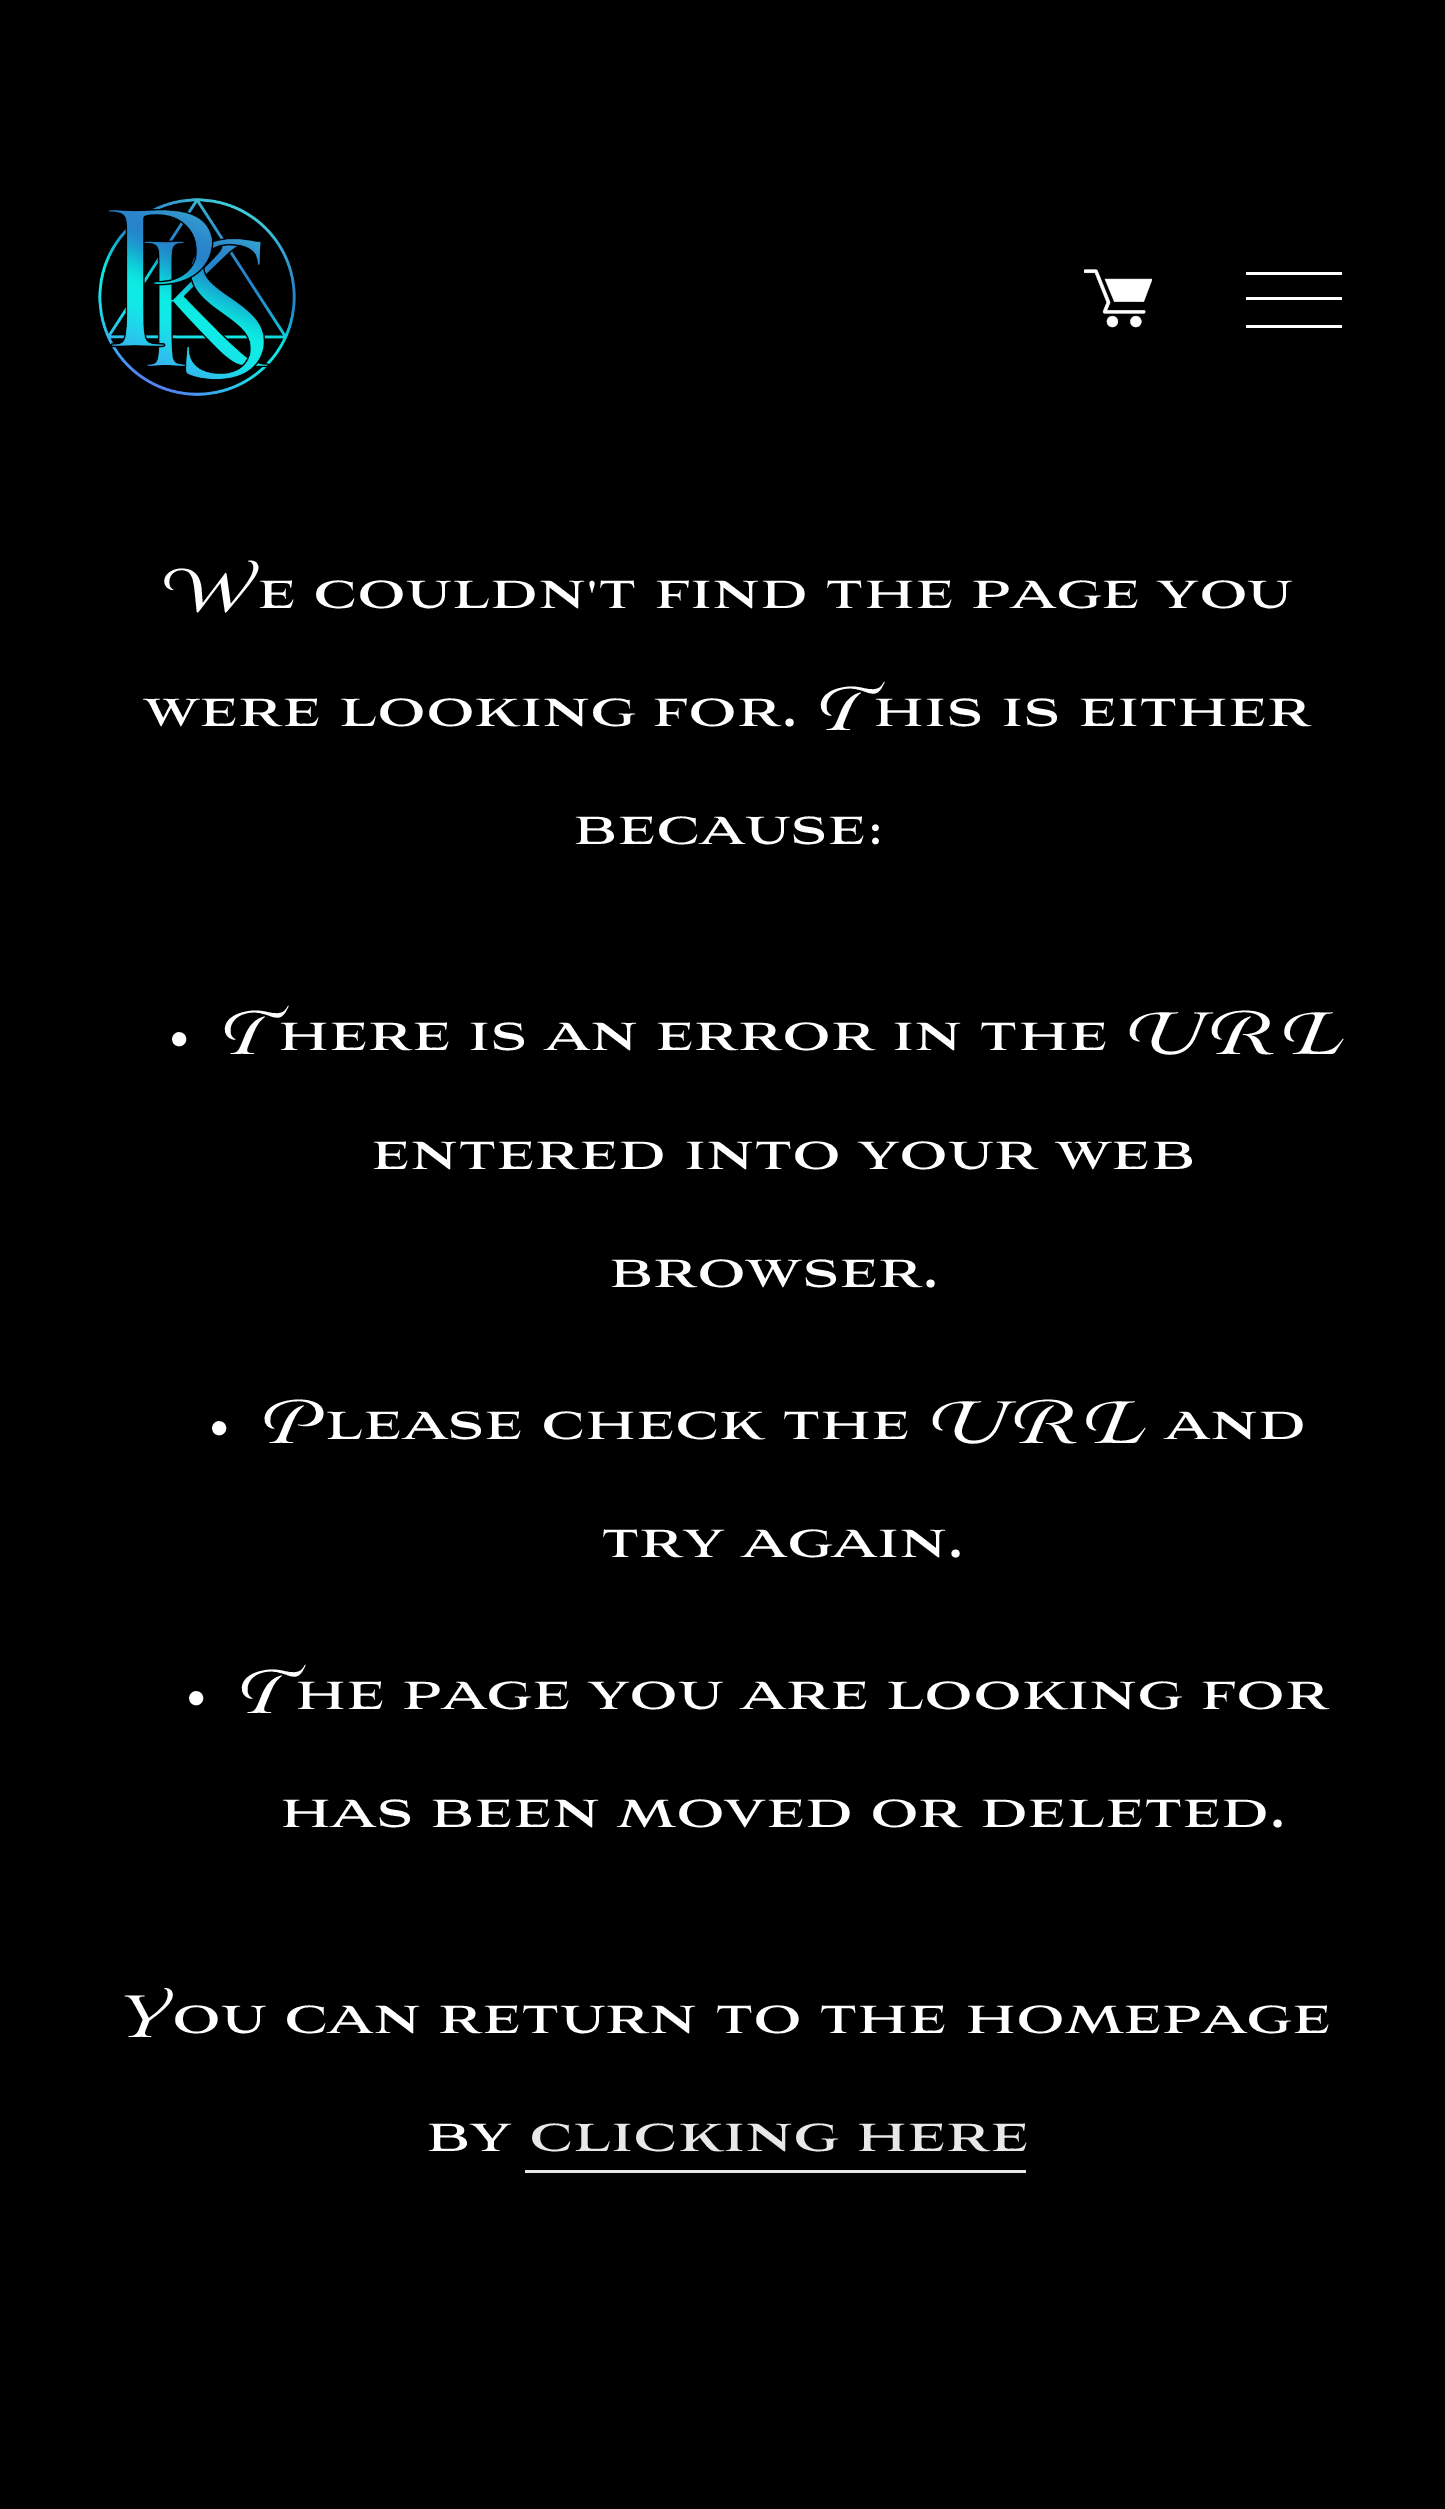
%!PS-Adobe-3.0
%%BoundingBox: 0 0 1445 2509
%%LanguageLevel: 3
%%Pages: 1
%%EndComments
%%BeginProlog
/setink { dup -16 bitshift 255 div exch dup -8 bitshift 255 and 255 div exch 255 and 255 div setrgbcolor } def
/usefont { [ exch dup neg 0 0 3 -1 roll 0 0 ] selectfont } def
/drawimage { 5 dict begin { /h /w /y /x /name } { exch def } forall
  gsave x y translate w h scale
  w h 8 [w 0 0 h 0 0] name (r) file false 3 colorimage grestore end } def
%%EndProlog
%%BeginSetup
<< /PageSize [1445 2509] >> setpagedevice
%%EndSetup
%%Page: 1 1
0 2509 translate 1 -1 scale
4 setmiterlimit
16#000000 setink
0 0 1445 2509 rectfill
(img1.raw) 98 198 198 198 drawimage
(img2.raw) 1084 269 68 59 drawimage
[
    [1246 272 96 3 16#FFFFFF]
    [1246 297 96 3 16#FFFFFF]
    [1246 325 96 3 16#FFFFFF]
] { aload pop setink rectfill } forall
/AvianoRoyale-Medium 67.75 usefont
158 612 moveto -0.7 0 (We couldn't find the page you) ashow
139 730 moveto -0.7 0 (were looking for. This is either) ashow
569 848 moveto -0.7 0 (because:) ashow
163 1054 moveto -0.7 0 (•) ashow
215 1054 moveto -0.7 0 (There is an error in the URL) ashow
367 1173 moveto -0.7 0 (entered into your web) ashow
605 1291 moveto -0.7 0 (browser.) ashow
203 1443 moveto -0.7 0 (•) ashow
255 1443 moveto -0.7 0 (Please check the URL and) ashow
597 1561 moveto -0.7 0 (try again.) ashow
180 1713 moveto -0.7 0 (•) ashow
232 1713 moveto -0.7 0 (The page you are looking for) ashow
276 1831 moveto -0.7 0 (has been moved or deleted.) ashow
120 2037 moveto -0.7 0 (You can return to the homepage) ashow
422 2155 moveto -0.7 0 (by) ashow
16#E8E8E8 setink
525 2155 moveto -0.7 0 (clicking here) ashow
525 2170 501 3 rectfill
showpage
%%EOF
